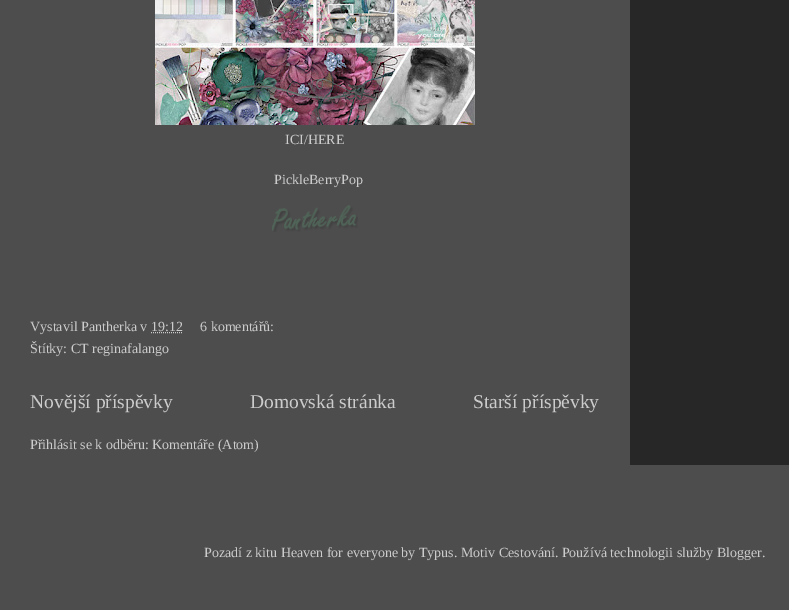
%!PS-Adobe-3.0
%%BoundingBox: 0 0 789 611
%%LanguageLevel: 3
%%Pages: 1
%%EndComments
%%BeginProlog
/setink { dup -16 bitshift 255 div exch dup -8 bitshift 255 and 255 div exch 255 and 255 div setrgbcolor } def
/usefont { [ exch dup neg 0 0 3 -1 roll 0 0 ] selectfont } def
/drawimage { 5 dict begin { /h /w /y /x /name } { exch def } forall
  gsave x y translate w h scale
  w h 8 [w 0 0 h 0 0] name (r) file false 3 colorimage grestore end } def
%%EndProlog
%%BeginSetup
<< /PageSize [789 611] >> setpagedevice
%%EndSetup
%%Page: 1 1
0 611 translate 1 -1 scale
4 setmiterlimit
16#FFFFFF setink
0 0 789 611 rectfill
16#4D4D4D setink
0 0 789 610 rectfill
(img1.raw) 155 0 320 125 drawimage
/LiberationSerif-Regular 14 usefont
16#CCCCCC setink
285 144 moveto (ICI/HERE) show
274 184 moveto (PickleBerryPop) show
(img2.raw) 272 205 86 27 drawimage
30 331 moveto (Vystavil Pantherka v 19:12) show
200 331 moveto (6 komentářů:) show
[1 1] 0 setdash
151 332.5 moveto 183 332.5 lineto stroke
30 353 moveto (Štítky: CT reginafalango) show
/LiberationSerif-Regular 19.5 usefont
[
    [(Novější příspěvky) 30 408]
    [(Domovská stránka) 250 408]
    [(Starší příspěvky) 473 408]
] { aload pop moveto show } forall
/LiberationSerif-Regular 14 usefont
30 449 moveto (Přihlásit se k odběru: Komentáře \(Atom\)) show
16#272727 setink
630 0 159 465 rectfill
16#CCCCCC setink
204 557 moveto (Pozadí z kitu Heaven for everyone by Typus. Motiv Cestování. Používá technologii služby Blogger.) show
showpage
%%EOF
